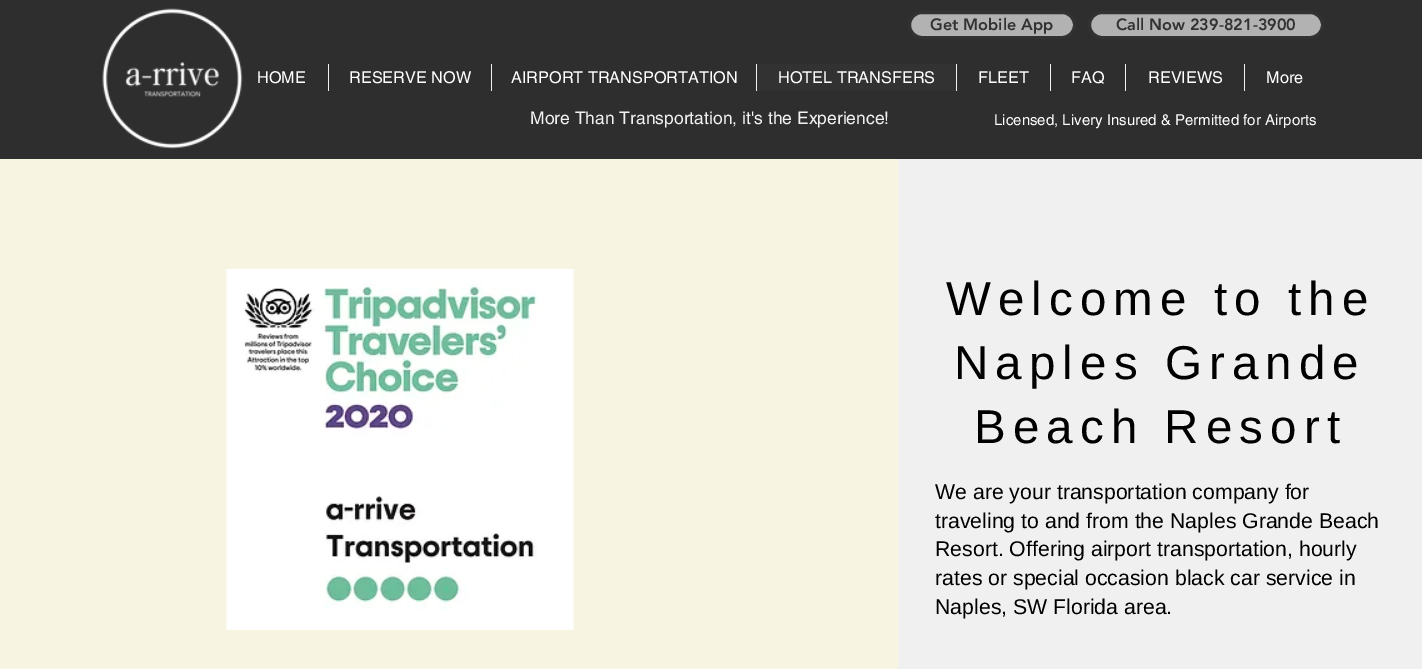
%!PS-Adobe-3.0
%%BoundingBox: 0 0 1422 669
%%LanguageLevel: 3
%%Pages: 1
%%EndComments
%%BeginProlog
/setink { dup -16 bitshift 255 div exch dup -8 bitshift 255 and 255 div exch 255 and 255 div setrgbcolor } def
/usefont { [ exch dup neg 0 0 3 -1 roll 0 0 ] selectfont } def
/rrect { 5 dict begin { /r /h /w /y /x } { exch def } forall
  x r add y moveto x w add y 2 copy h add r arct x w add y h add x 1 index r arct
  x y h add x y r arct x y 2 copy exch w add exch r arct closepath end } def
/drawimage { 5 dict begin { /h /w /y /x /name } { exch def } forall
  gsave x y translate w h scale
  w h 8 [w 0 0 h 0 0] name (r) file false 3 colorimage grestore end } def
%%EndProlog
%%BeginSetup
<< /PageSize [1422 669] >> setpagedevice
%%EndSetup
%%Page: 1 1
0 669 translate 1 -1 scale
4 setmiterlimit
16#2F2E2E setink
0 0 1422 669 rectfill
(img1.raw) 102 8 141 141 drawimage
16#B2B2B2 setink
909.5 12.5 165 25 12.5 rrect gsave fill grestore
16#323232 setink
3 setlinewidth
stroke
/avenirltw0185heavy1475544-Black 16.25 usefont
930 30 moveto (Get Mobile App) show
16#B2B2B2 setink
1089.5 12.5 233 25 12.5 rrect gsave fill grestore
16#323232 setink
stroke
1116 30 moveto (Call Now 239-821-3900) show
/helvetica-Regular 16.25 usefont
16#FFFFFF setink
257 83 moveto (HOME) show
16#F1F1F1 setink
328 64 1 27 rectfill
16#FFFFFF setink
349 83 moveto (RESERVE NOW) show
16#F1F1F1 setink
491 64 1 27 rectfill
16#FFFFFF setink
511 83 moveto (AIRPORT TRANSPORTATION) show
16#323232 setink
757 64 199 27 rectfill
16#F1F1F1 setink
756 64 1 27 rectfill
16#FFFFFF setink
778 83 moveto (HOTEL TRANSFERS) show
16#F1F1F1 setink
956 64 1 27 rectfill
16#FFFFFF setink
978 83 moveto (FLEET) show
16#F1F1F1 setink
1050 64 1 27 rectfill
16#FFFFFF setink
1071 83 moveto (FAQ) show
16#F1F1F1 setink
1125 64 1 27 rectfill
16#FFFFFF setink
1148 83 moveto (REVIEWS) show
16#F1F1F1 setink
1244 64 1 27 rectfill
16#FFFFFF setink
1266 83 moveto (More) show
/helvetica-Regular 17.5 usefont
16#F1F1F1 setink
530 124 moveto (More Than Transportation, it's the Experience!) show
/helvetica-Regular 15 usefont
16#FFFFFF setink
994 125 moveto (Licensed, Livery Insured & Permitted for Airports) show
16#F7F5E1 setink
0 159 898 510 rectfill
(img2.raw) 226 269 348 361 drawimage
16#F0F0F0 setink
898 159 524 510 rectfill
/LiberationSans-Regular 47.5 usefont
16#000000 setink
946 315 moveto 7.1 0 (Welcome to the) ashow
954 379 moveto 7.1 0 (Naples Grande) ashow
974 443 moveto 7.1 0 (Beach Resort) ashow
/LiberationSans-Regular 21.25 usefont
[
    [(We are your transportation company for) 935 499]
    [(traveling to and from the Naples Grande Beach) 935 528]
    [(Resort. Offering airport transportation, hourly) 935 556]
    [(rates or special occasion black car service in) 935 585]
    [(Naples, SW Florida area.) 935 614]
] { aload pop moveto show } forall
showpage
%%EOF
